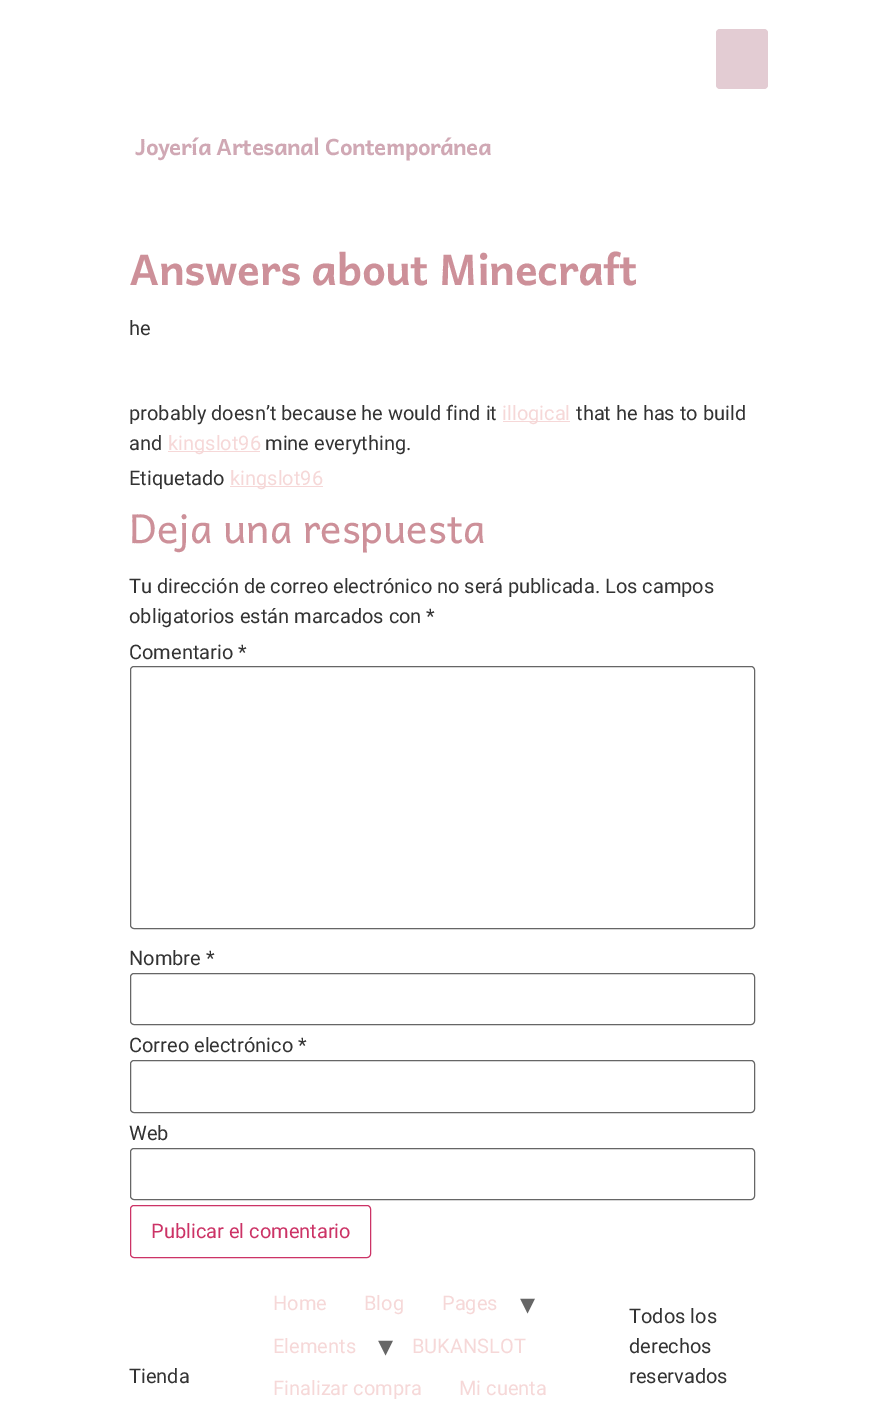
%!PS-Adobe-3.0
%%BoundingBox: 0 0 883 1421
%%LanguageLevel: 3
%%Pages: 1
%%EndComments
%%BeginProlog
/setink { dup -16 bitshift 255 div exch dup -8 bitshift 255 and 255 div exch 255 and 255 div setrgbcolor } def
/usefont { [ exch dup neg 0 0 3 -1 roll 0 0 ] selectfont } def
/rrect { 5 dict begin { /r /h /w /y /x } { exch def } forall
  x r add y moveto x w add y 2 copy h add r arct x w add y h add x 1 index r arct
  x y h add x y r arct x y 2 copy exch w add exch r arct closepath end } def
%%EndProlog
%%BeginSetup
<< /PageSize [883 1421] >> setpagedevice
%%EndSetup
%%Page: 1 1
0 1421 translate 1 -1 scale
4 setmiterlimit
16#FFFFFF setink
0 0 883 1421 rectfill
16#E3CCD3 setink
716 29 52 60 4 rrect fill
/Andika-Bold 22.5 usefont
16#D0A8B4 setink
135 155 moveto -0.6 0 (Joyería Artesanal Contemporánea) ashow
/Andika-Bold 42.5 usefont
16#CD9099 setink
129 285 moveto -0.6 0 (Answers about Minecraft) ashow
/Roboto-Regular 20 usefont
16#333333 setink
129 335 moveto (he) show
129 420 moveto (probably doesn’t because he would find it) show
16#F6D8D8 setink
503 421 67 1 rectfill
502 420 moveto (illogical) show
16#333333 setink
576 420 moveto (that he has to build) show
129 450 moveto (and) show
16#F6D8D8 setink
168 451 92 1 rectfill
168 450 moveto (kingslot96) show
16#333333 setink
265 450 moveto (mine everything.) show
129 485 moveto (Etiquetado) show
16#F6D8D8 setink
230 486 93 1 rectfill
230 485 moveto (kingslot96) show
/Andika-Regular 40 usefont
16#CD9099 setink
129 543 moveto (Deja una respuesta) show
/Roboto-Regular 20 usefont
16#333333 setink
[
    [(Tu dirección de correo electrónico no será publicada. Los campos) 129 593]
    [(obligatorios están marcados con *) 129 623]
    [(Comentario *) 129 659]
] { aload pop moveto show } forall
16#666666 setink
130.5 666.5 624 262 3.5 rrect stroke
16#333333 setink
129 965 moveto (Nombre *) show
16#666666 setink
130.5 973.5 624 51 3.5 rrect stroke
16#333333 setink
129 1052 moveto (Correo electrónico *) show
16#666666 setink
130.5 1060.5 624 52 3.5 rrect stroke
16#333333 setink
129 1140 moveto (Web) show
16#666666 setink
130.5 1148.5 624 51 3.5 rrect stroke
16#CC3366 setink
130.5 1205.5 240 52 3.5 rrect stroke
151 1238 moveto (Publicar el comentario) show
16#333333 setink
129 1383 moveto (Tienda) show
16#F6D8D8 setink
[
    [(Home) 273 1310]
    [(Blog) 364 1310]
    [(Pages) 442 1310]
] { aload pop moveto show } forall
/DejaVuSans-Regular 30 usefont
16#666666 setink
520 1314 moveto (▾) show
/Roboto-Regular 20 usefont
16#F6D8D8 setink
273 1353 moveto (Elements) show
/DejaVuSans-Regular 30 usefont
16#666666 setink
378 1356 moveto (▾) show
/Roboto-Regular 20 usefont
16#F6D8D8 setink
[
    [(BUKANSLOT) 412 1353]
    [(Finalizar compra) 273 1395]
    [(Mi cuenta) 459 1395]
] { aload pop moveto show } forall
16#333333 setink
[
    [(Todos los) 629 1323]
    [(derechos) 629 1353]
    [(reservados) 629 1383]
] { aload pop moveto show } forall
showpage
%%EOF
